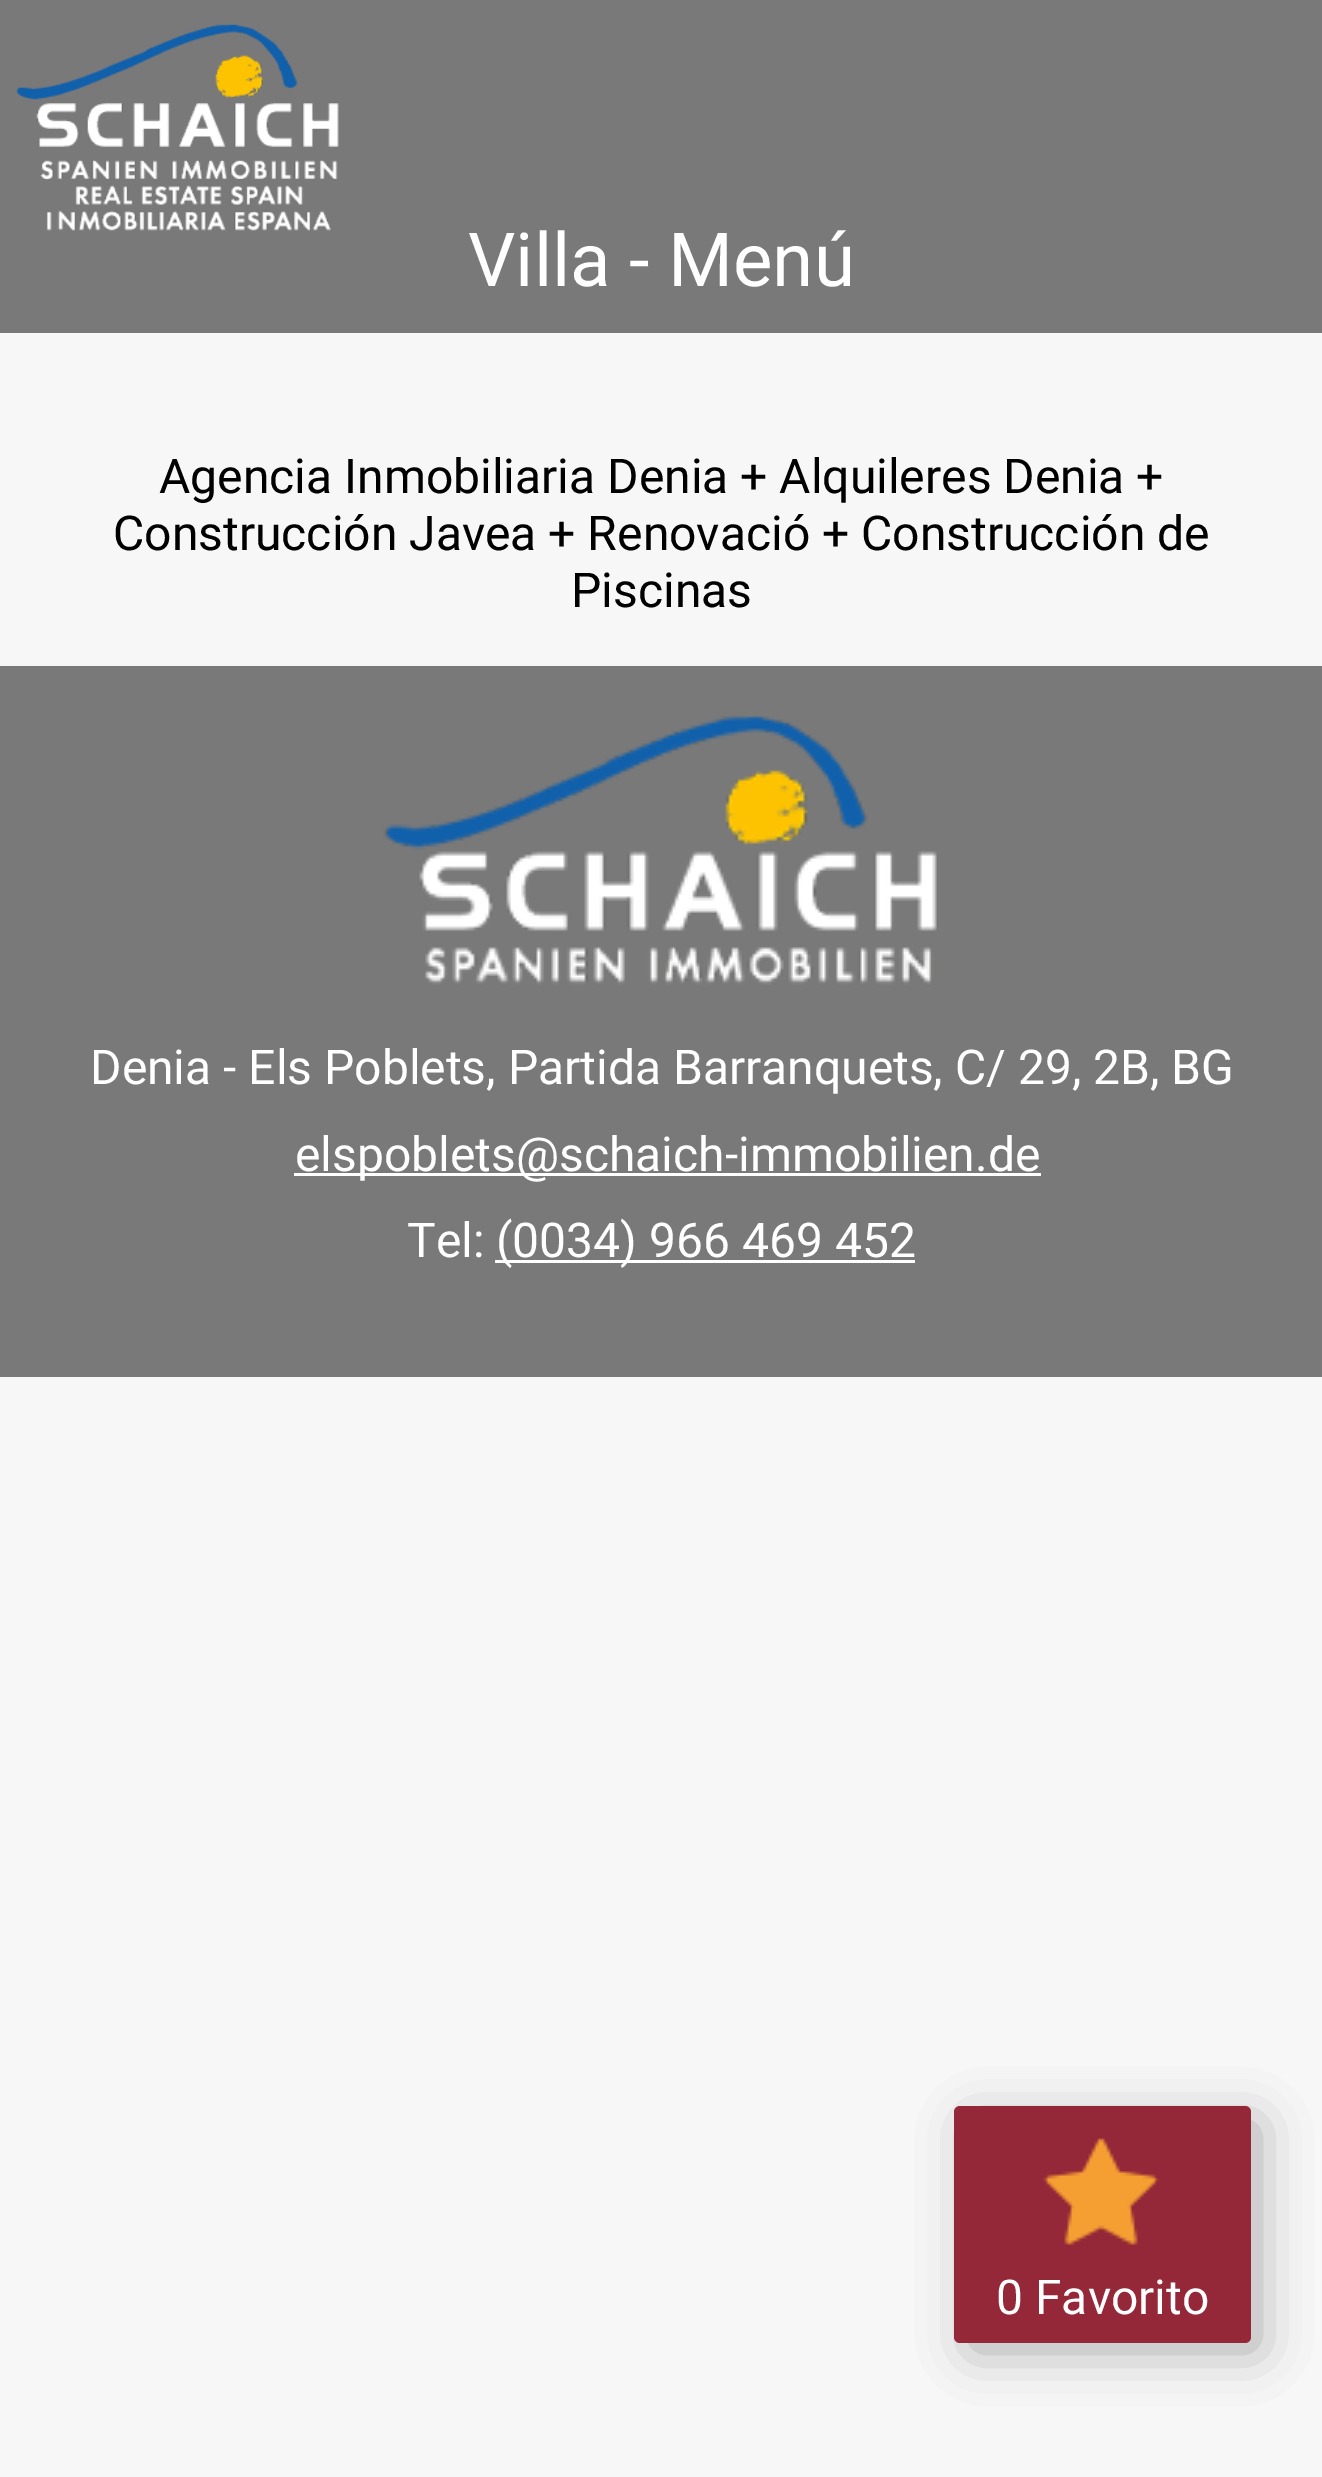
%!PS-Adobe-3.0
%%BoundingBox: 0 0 1322 2477
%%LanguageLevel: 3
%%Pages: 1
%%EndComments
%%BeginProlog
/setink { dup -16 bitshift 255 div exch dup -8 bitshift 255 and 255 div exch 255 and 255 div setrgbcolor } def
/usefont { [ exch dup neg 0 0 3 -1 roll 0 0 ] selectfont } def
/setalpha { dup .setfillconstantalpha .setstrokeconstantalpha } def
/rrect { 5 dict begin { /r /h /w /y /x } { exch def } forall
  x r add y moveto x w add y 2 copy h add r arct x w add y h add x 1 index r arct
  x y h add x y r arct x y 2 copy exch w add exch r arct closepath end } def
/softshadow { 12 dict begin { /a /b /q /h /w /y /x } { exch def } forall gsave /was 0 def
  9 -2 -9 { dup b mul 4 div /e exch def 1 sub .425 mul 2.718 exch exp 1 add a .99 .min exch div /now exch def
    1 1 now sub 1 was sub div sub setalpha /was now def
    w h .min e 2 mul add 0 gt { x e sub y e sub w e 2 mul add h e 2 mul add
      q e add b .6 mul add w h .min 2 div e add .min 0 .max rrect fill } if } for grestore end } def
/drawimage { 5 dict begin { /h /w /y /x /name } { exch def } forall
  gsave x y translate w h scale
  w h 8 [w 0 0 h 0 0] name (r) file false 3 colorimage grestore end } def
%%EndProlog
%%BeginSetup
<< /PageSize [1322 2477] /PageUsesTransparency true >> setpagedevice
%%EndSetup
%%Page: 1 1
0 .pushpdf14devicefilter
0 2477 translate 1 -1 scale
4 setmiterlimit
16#F7F7F7 setink
0 0 1322 2477 rectfill
16#797979 setink
0 0 1322 333 rectfill
(img1.raw) 16 24 323 207 drawimage
/Roboto-Regular 74.5 usefont
16#FFFFFF setink
468 286 moveto (Villa - Menú) show
/Roboto-Regular 48 usefont
16#000000 setink
[
    [(Agencia Inmobiliaria Denia + Alquileres Denia +) 159 493]
    [(Construcción Javea + Renovació + Construcción de) 113 550]
    [(Piscinas) 571 607]
] { aload pop moveto show } forall
16#797979 setink
0 666 1322 711 rectfill
(img2.raw) 383 716 555 269 drawimage
16#FFFFFF setink
90 1084 moveto (Denia - Els Poblets, Partida Barranquets, C/ 29, 2B, BG) show
294 1173 747 3 rectfill
295 1171 moveto (elspoblets@schaich-immobilien.de) show
407 1257 moveto (Tel:) show
495 1260 420 3 rectfill
496 1257 moveto (\(0034\) 966 469 452) show
16#191919 setink
972 2124 285 225 0 25.5 0.35 softshadow
16#942838 setink
954 2106 297 237 6 rrect fill
(img3.raw) 1043 2138 116 107 drawimage
16#FFFFFF setink
996 2314 moveto (0 Favorito) show
.poppdf14devicefilter showpage
%%EOF
